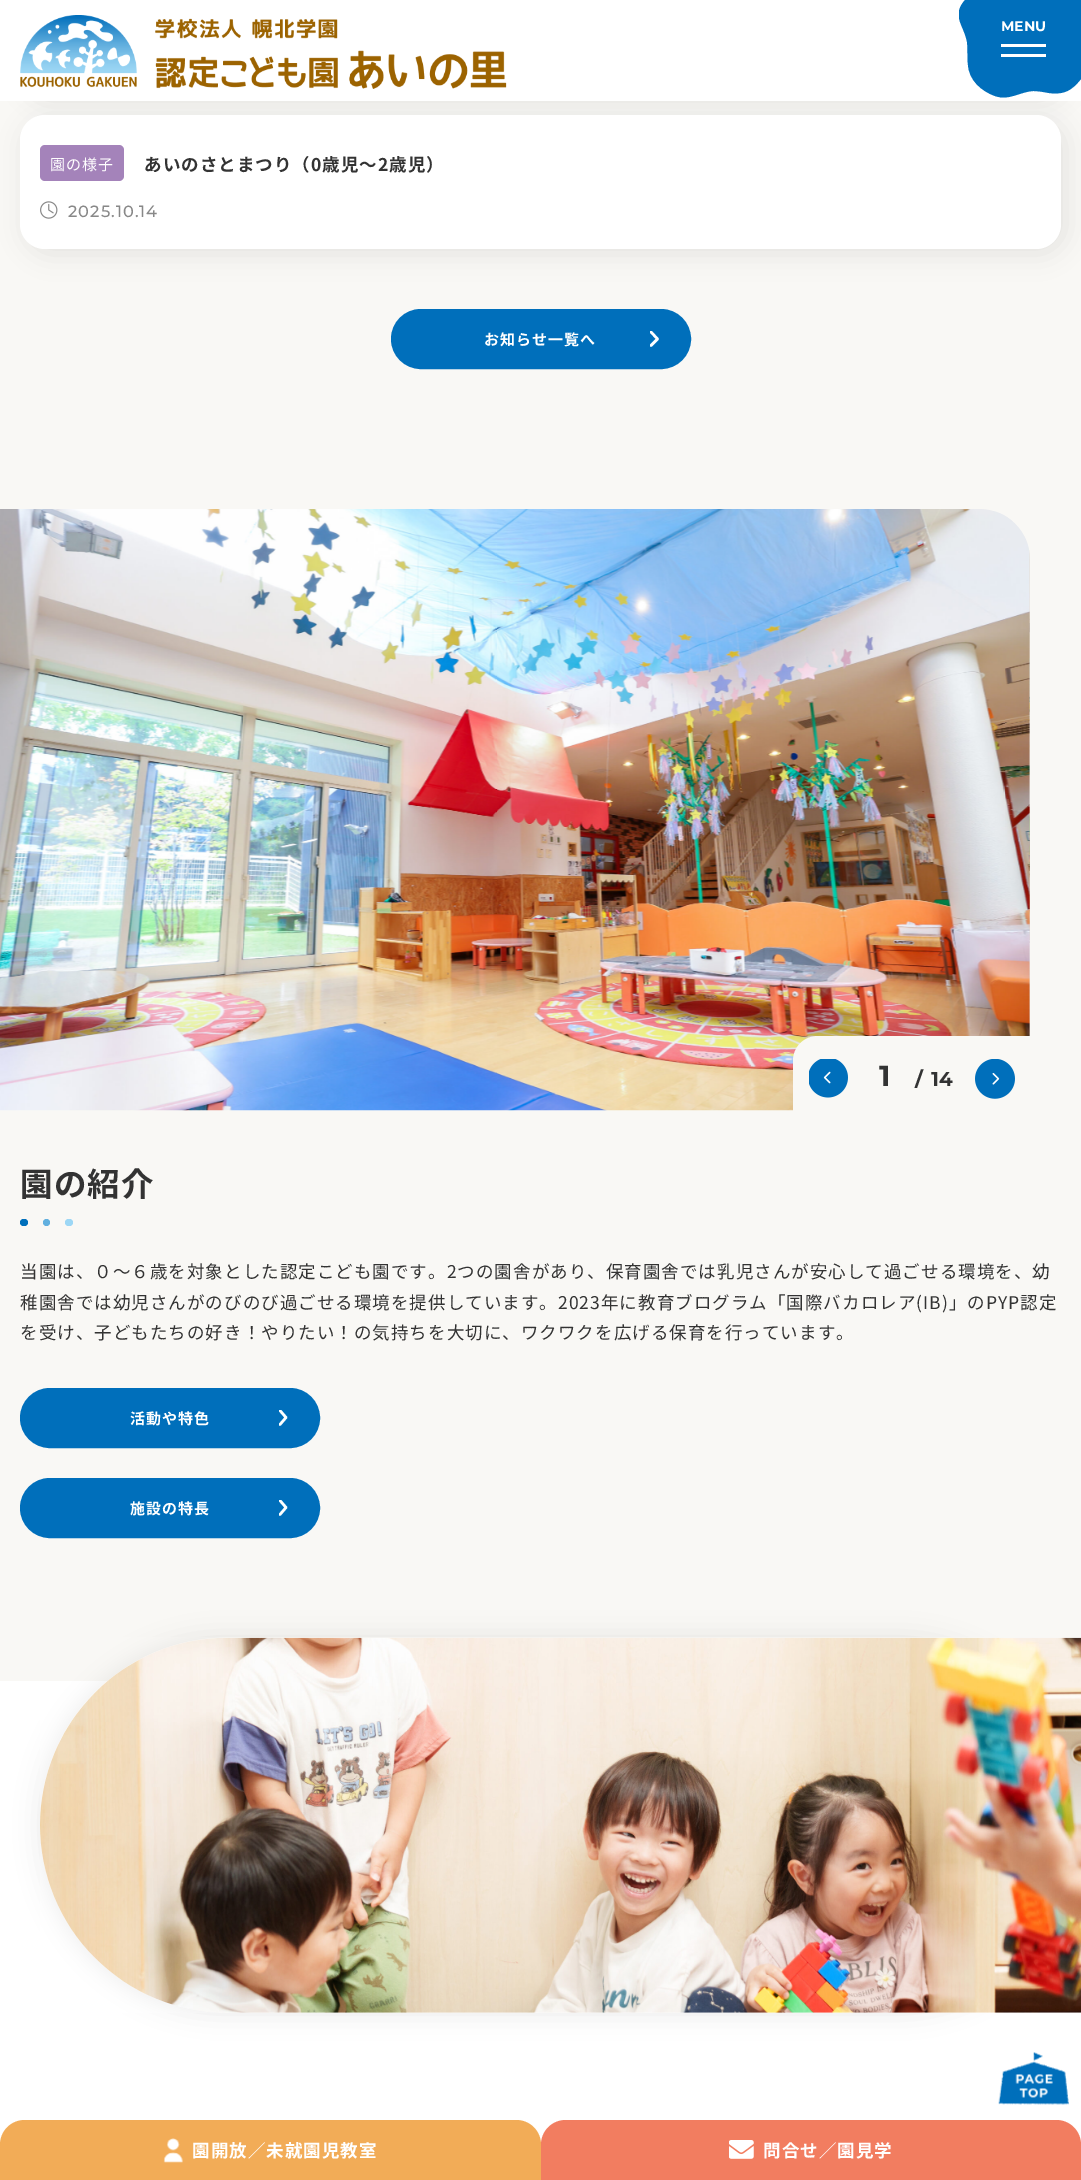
%!PS-Adobe-3.0
%%BoundingBox: 0 0 1081 2180
%%LanguageLevel: 3
%%Pages: 1
%%EndComments
%%BeginProlog
/setink { dup -16 bitshift 255 div exch dup -8 bitshift 255 and 255 div exch 255 and 255 div setrgbcolor } def
/usefont { [ exch dup neg 0 0 3 -1 roll 0 0 ] selectfont } def
/setalpha { dup .setfillconstantalpha .setstrokeconstantalpha } def
/disc { newpath 0 360 arc closepath } def
/rrect { 5 dict begin { /r /h /w /y /x } { exch def } forall
  x r add y moveto x w add y 2 copy h add r arct x w add y h add x 1 index r arct
  x y h add x y r arct x y 2 copy exch w add exch r arct closepath end } def
/softshadow { 12 dict begin { /a /b /q /h /w /y /x } { exch def } forall gsave /was 0 def
  9 -2 -9 { dup b mul 4 div /e exch def 1 sub .425 mul 2.718 exch exp 1 add a .99 .min exch div /now exch def
    1 1 now sub 1 was sub div sub setalpha /was now def
    w h .min e 2 mul add 0 gt { x e sub y e sub w e 2 mul add h e 2 mul add
      q e add b .6 mul add w h .min 2 div e add .min 0 .max rrect fill } if } for grestore end } def
/drawimage { 5 dict begin { /h /w /y /x /name } { exch def } forall
  gsave x y translate w h scale
  w h 8 [w 0 0 h 0 0] name (r) file false 3 colorimage grestore end } def
%%EndProlog
%%BeginSetup
<< /PageSize [1081 2180] /PageUsesTransparency true >> setpagedevice
%%EndSetup
%%Page: 1 1
0 .pushpdf14devicefilter
0 2180 translate 1 -1 scale
4 setmiterlimit
16#F9F8F5 setink
0 0 1081 2180 rectfill
16#333333 setink
25 -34 1041 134 25 12.5 0.1 softshadow
25 120 1041 134 25 12.5 0.1 softshadow
16#FFFFFF setink
0 0 1081 101 rectfill
(img1.raw) 20 15 487 74 drawimage
gsave
959 0 122 98 rectclip
16#006FBB setink
1081 0 moveto 1081 79 lineto 1072 90 1065 95 1049 93 curveto 1044 92 1038 91 1033 91 curveto 1019 92 1009 101 995 96 curveto 981 91 969 80 968 65 curveto 967 57 968 50 967 42 curveto 964 25 951 16 965 0 curveto closepath eofill
grestore
/Montserrat-Bold 14 usefont
1001 31 moveto (MENU) show
1001 44 45 3 rectfill
1001 54 45 3 rectfill
20 115 1041 134 25 rrect fill
16#A483BA setink
40 145 84 36 5 rrect fill
/NotoSansJP-Regular 15 usefont
16#FFFFFF setink
50 170 moveto 1.05 0 (園の様子) ashow
/NotoSansJP-Bold 17.5 usefont
16#333333 setink
144 171 moveto 1.05 0 (あいのさとまつり（0歳児～2歳児）) ashow
(img2.raw) 40 201 18 18 drawimage
/Montserrat-Medium 16.25 usefont
16#888888 setink
68 217 moveto 1.05 0 (2025.10.14) ashow
16#006FBB setink
392.5 310.5 297 57 28.5 rrect gsave fill grestore
3 setlinewidth
stroke
/NotoSansJP-Bold 15 usefont
16#FFFFFF setink
484 345 moveto 1.05 0 (お知らせ一覧へ) ashow
gsave
650 331 9 17 rectclip
2.5 setlinewidth
1 setlinecap
1 setlinejoin
651 332 moveto 657.5 339 lineto 651 345.5 lineto stroke
grestore
(img3.raw) 0 509 1030 602 drawimage
(img4.raw) 1029 550 1 486 drawimage
16#F9F8F5 setink
818 1036 moveto 1031 1036 lineto 1031 1111 lineto 793 1111 lineto 793 1061 lineto 793 1047 804 1036 818 1036 curveto closepath fill
(img5.raw) 809 1059 39 39 drawimage
/Montserrat-Bold 29 usefont
16#333333 setink
879 1086 moveto 1.05 0 (1) ashow
/Montserrat-Bold 20 usefont
915 1086 moveto 1.05 0 (/ 14) ashow
(img6.raw) 975 1059 40 40 drawimage
/NotoSansJP-Bold 32.5 usefont
20 1196 moveto 1.05 0 (園の紹介) ashow
16#006FBB setink
20 1219 8 7 3.5 rrect fill
16#62B0DF setink
46.5 1222.5 3.5 disc fill
16#9DD7F5 setink
65 1219 8 7 3.5 rrect fill
/NotoSansJP-Regular 17.5 usefont
16#333333 setink
20 1278 moveto 1.05 0 (当園は、０～６歳を対象とした認定こども園です。2つの園舎があり、保育園舎では乳児さんが安心して過ごせる環境を、幼) ashow
20 1309 moveto 1.05 0 (稚園舎では幼児さんがのびのび過ごせる環境を提供しています。2023年に教育ブログラム「国際バカロレア\(IB\)」のPYP認定) ashow
20 1339 moveto 1.05 0 (を受け、子どもたちの好き！やりたい！の気持ちを大切に、ワクワクを広げる保育を行っています。) ashow
16#006FBB setink
21.5 1389.5 297 57 28.5 rrect gsave fill grestore
stroke
/NotoSansJP-Bold 15 usefont
16#FFFFFF setink
130 1424 moveto 1.05 0 (活動や特色) ashow
gsave
279 1410 9 16 rectclip
2.5 setlinewidth
1 setlinecap
1 setlinejoin
280 1410.5 moveto 286 1417.5 lineto 280 1424.5 lineto stroke
grestore
16#006FBB setink
21.5 1479.5 297 57 28.5 rrect gsave fill grestore
stroke
16#FFFFFF setink
130 1514 moveto 1.05 0 (施設の特長) ashow
gsave
279 1500 9 16 rectclip
2.5 setlinewidth
1 setlinecap
1 setlinejoin
280 1500.5 moveto 286 1507.5 lineto 280 1514.5 lineto stroke
grestore
0 1681 1081 464 rectfill
16#333333 setink
40 1638 1041 375 187.5 12.5 0.1 softshadow
(img7.raw) 40 1637 1041 376 drawimage
(img8.raw) 998 2052 71 53 drawimage
16#F2AC57 setink
25 2120 moveto 516 2120 lineto 530 2120 541 2131 541 2145 curveto 541 2180 lineto 0 2180 lineto 0 2145 lineto 0 2131 11 2120 25 2120 curveto closepath fill
(img9.raw) 163 2138 20 25 drawimage
/NotoSansJP-Bold 17.5 usefont
16#FFFFFF setink
192 2157 moveto 1.05 0 (園開放／未就園児教室) ashow
16#F27D60 setink
566 2120 moveto 1056 2120 lineto 1070 2120 1081 2131 1081 2145 curveto 1081 2180 lineto 541 2180 lineto 541 2145 lineto 541 2131 552 2120 566 2120 curveto closepath fill
(img10.raw) 729 2140 25 19 drawimage
16#FFFFFF setink
763 2157 moveto 1.05 0 (問合せ／園見学) ashow
.poppdf14devicefilter showpage
%%EOF
